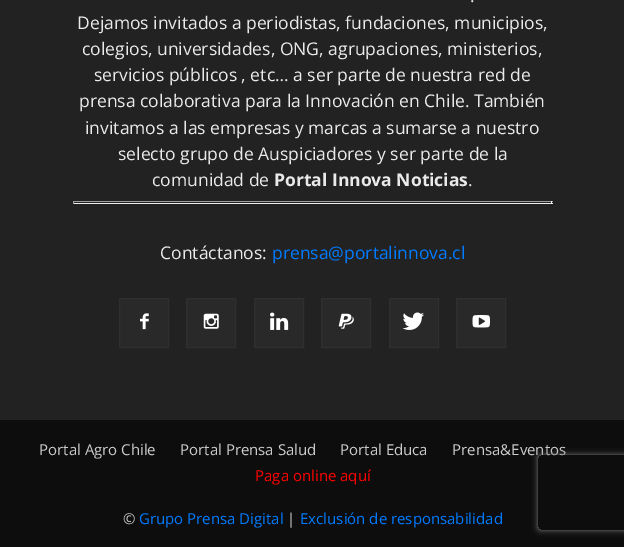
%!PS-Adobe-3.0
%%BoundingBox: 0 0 624 547
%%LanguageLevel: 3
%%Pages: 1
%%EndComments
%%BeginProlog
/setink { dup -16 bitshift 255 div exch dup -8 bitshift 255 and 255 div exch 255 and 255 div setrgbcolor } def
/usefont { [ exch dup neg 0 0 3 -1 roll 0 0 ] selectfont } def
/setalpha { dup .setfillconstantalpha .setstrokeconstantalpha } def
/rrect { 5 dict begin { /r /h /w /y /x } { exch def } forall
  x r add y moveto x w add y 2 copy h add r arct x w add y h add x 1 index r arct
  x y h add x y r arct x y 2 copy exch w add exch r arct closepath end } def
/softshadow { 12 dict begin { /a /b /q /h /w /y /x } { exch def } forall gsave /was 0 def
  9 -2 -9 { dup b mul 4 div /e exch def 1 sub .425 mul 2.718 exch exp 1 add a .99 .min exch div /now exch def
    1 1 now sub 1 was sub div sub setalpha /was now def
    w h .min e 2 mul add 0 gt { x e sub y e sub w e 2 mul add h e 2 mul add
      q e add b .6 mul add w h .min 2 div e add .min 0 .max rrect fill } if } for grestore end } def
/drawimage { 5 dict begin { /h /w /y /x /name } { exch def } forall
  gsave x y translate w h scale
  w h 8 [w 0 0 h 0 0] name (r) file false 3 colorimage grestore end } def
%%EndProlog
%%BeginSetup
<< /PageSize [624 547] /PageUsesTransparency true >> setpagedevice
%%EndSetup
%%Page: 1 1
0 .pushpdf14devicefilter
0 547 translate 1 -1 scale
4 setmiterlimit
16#0D0D0D setink
0 0 624 547 rectfill
16#222222 setink
0 0 624 420 rectfill
/OpenSans-Regular 17.5 usefont
16#EAEAEA setink
[
    [(.) 470 2]
    [(Dejamos invitados a periodistas, fundaciones, municipios,) 77 29]
    [(colegios, universidades, ONG, agrupaciones, ministerios,) 82 55]
    [(servicios públicos , etc… a ser parte de nuestra red de) 94 81]
    [(prensa colaborativa para la Innovación en Chile. También) 79 107]
    [(invitamos a las empresas y marcas a sumarse a nuestro) 85 134]
    [(selecto grupo de Auspiciadores y ser parte de la) 118 160]
    [(comunidad de) 152 186]
] { aload pop moveto show } forall
/OpenSans-Bold 17.5 usefont
274 186 moveto (Portal Innova Noticias) show
/OpenSans-Regular 17.5 usefont
468 186 moveto (.) show
[
    [73 201 480 1 16#9F9F9F]
    [551 201 1 3 16#EEEEEE]
    [73 203 480 1 16#EEEEEE]
    [73 201 1 3 16#9F9F9F]
] { aload pop setink rectfill } forall
16#EAEAEA setink
160 259 moveto (Contáctanos:) show
16#007AFF setink
272 259 moveto (prensa@portalinnova.cl) show
16#292929 setink
120 299 48 48 rectfill
(img1.raw) 140 313 9 17 drawimage
16#2F2F2F setink
119.5 298.5 49 49 rectstroke
16#292929 setink
187 299 48 48 rectfill
(img2.raw) 203 313 16 16 drawimage
16#2F2F2F setink
186.5 298.5 49 49 rectstroke
16#292929 setink
255 299 48 48 rectfill
(img3.raw) 270 312 19 18 drawimage
16#2F2F2F setink
254.5 298.5 49 49 rectstroke
16#292929 setink
322 299 48 48 rectfill
(img4.raw) 338 313 16 16 drawimage
16#2F2F2F setink
321.5 298.5 49 49 rectstroke
16#292929 setink
390 299 48 48 rectfill
(img5.raw) 402 312 22 18 drawimage
16#2F2F2F setink
389.5 298.5 49 49 rectstroke
16#292929 setink
457 299 48 48 rectfill
(img6.raw) 472 315 18 13 drawimage
16#2F2F2F setink
456.5 298.5 49 49 rectstroke
/OpenSans-Regular 15 usefont
16#CCCCCC setink
[
    [(Portal Agro Chile) 39 455]
    [(Portal Prensa Salud) 180 455]
    [(Portal Educa) 340 455]
    [(Prensa&Eventos) 452 455]
] { aload pop moveto show } forall
16#FF0000 setink
255 481 moveto (Paga online aquí) show
16#CCCCCC setink
123 524 moveto (©) show
16#007AFF setink
139 524 moveto (Grupo Prensa Digital) show
16#CCCCCC setink
287 524 moveto (|) show
16#007AFF setink
300 524 moveto (Exclusión de responsabilidad) show
gsave
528 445 moveto 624 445 lineto 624 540 lineto 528 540 lineto closepath 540.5 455 moveto 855.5 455 lineto 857 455 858 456 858 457.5 curveto 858 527.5 lineto 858 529 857 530 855.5 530 curveto 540.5 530 lineto 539 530 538 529 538 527.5 curveto 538 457.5 lineto 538 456 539 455 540.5 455 curveto closepath eoclip newpath
16#808080 setink
538 455 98 75 2.5 3 1 softshadow
grestore
.poppdf14devicefilter showpage
%%EOF
